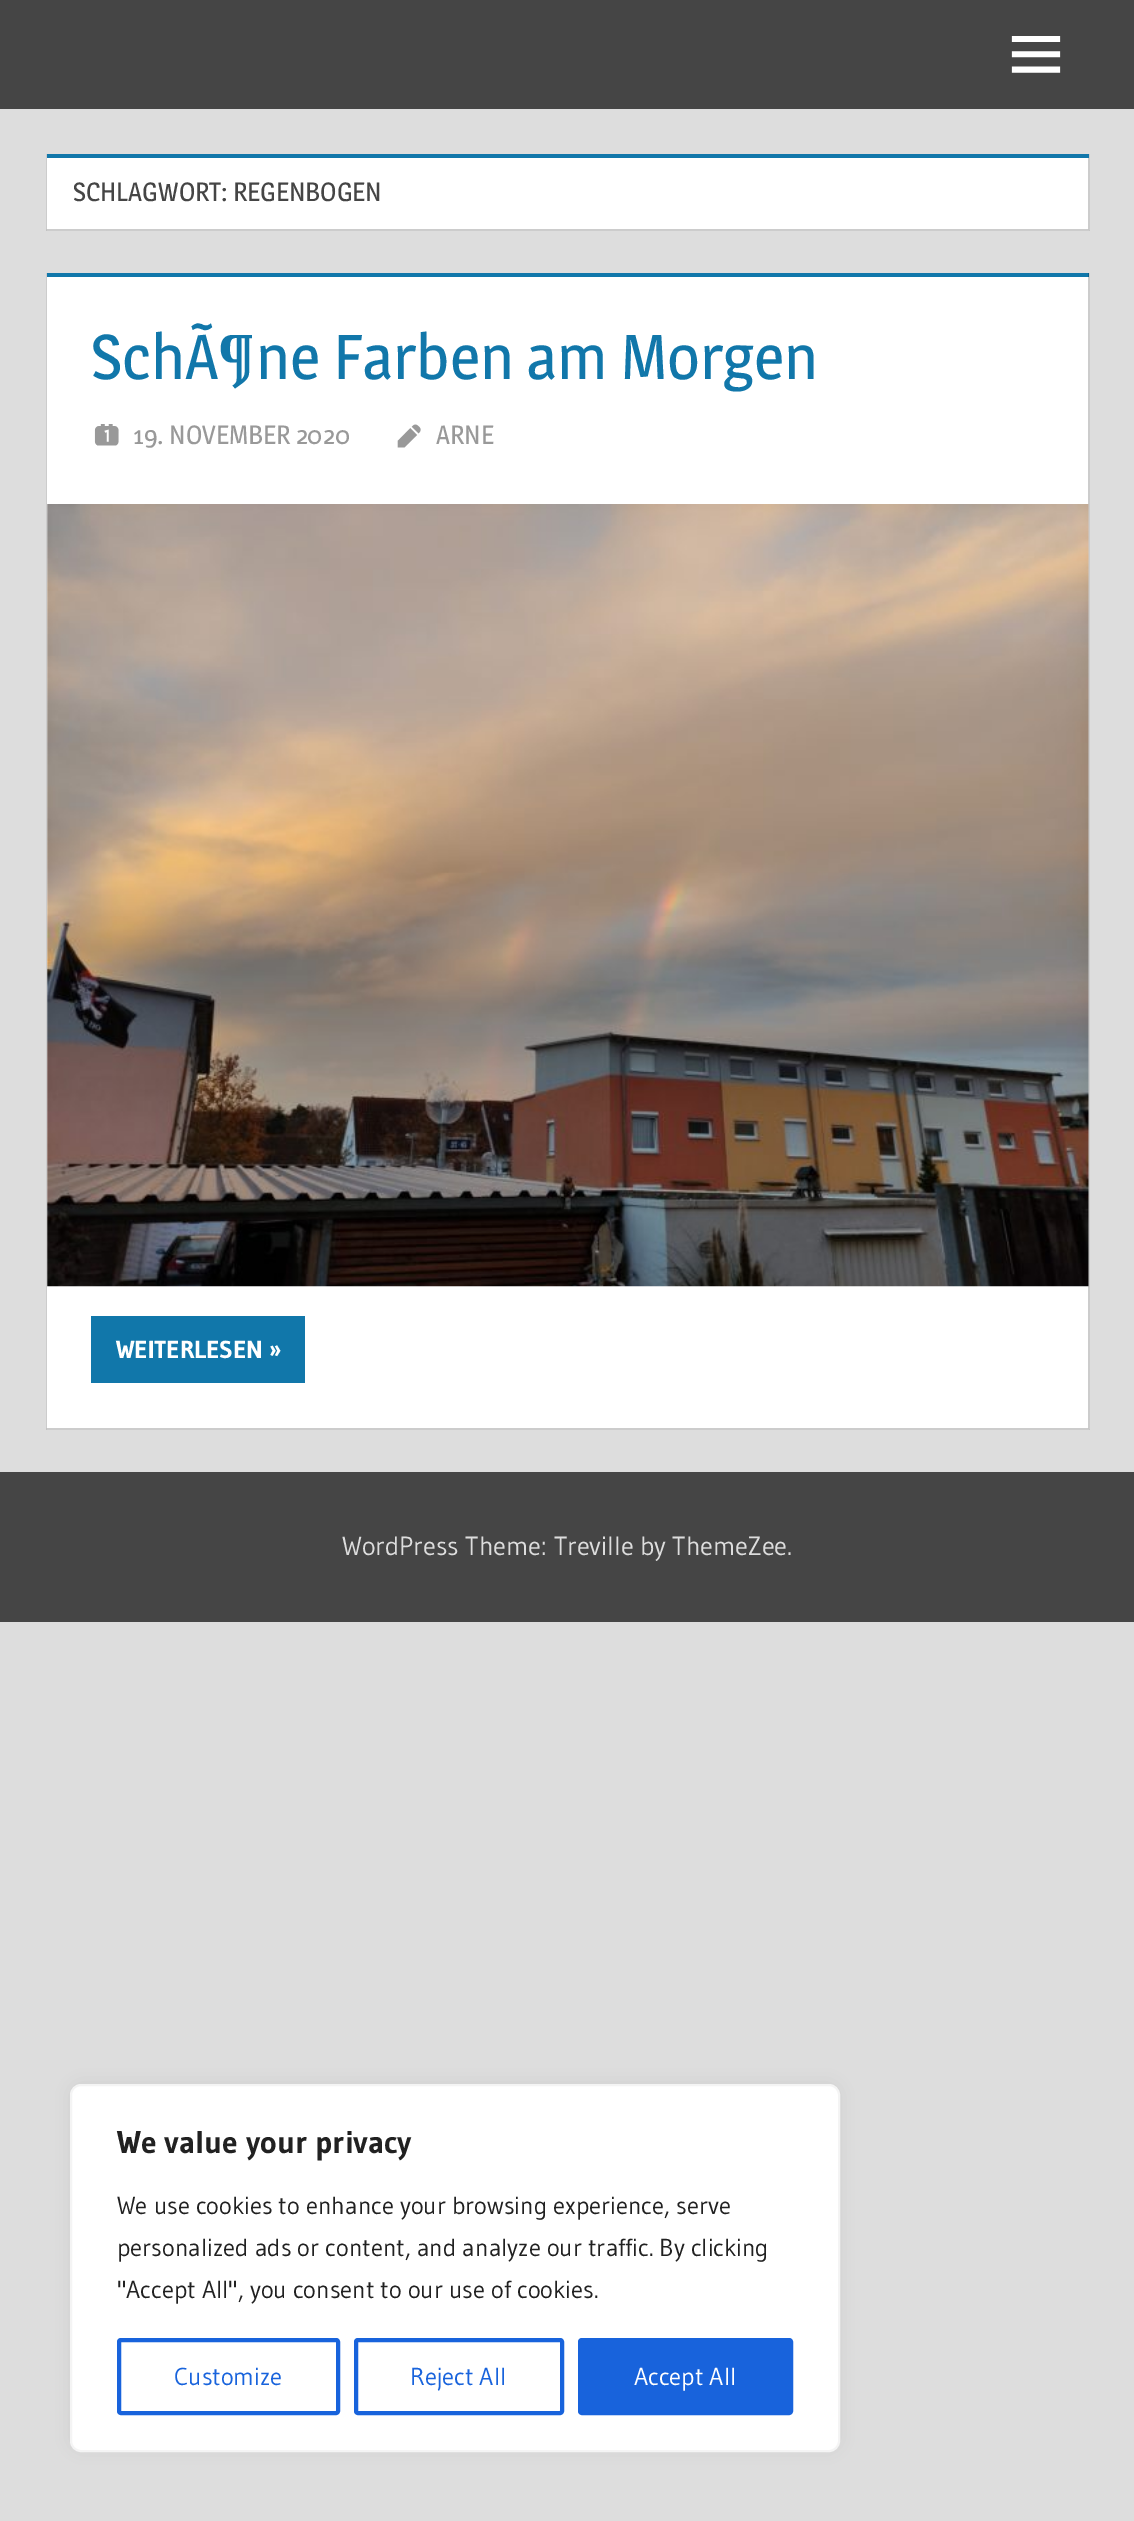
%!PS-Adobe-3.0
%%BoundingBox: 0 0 1134 2521
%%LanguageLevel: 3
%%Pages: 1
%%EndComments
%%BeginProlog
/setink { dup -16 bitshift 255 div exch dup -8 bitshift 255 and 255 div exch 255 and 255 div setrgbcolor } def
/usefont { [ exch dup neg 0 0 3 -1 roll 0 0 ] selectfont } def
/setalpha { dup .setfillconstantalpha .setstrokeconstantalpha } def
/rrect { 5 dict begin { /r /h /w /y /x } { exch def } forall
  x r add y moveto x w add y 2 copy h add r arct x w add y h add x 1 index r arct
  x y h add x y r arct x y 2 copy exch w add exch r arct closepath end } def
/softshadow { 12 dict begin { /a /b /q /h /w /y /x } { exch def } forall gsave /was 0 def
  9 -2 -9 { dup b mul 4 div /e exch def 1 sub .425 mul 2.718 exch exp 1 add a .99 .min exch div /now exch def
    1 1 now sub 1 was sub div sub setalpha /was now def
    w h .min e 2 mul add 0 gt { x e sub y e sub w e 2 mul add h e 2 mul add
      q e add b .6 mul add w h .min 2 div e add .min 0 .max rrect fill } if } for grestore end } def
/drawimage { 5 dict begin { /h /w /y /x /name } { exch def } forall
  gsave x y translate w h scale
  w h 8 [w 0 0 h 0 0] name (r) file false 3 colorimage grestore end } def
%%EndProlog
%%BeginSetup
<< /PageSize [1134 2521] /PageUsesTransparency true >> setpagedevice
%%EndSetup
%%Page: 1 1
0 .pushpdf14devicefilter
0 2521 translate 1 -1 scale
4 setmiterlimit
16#DDDDDD setink
0 0 1134 2521 rectfill
16#454545 setink
0 0 1134 109 rectfill
(img1.raw) 1011 36 50 37 drawimage
16#FFFFFF setink
46 154 1044 77 rectfill
16#CCCCCC setink
1090 154 moveto 1090 231 lineto 1088 229 lineto 1088 154 lineto closepath fill
0.2 setalpha
16#000000 setink
1090 231 moveto 46 231 lineto 47 229 lineto 1088 229 lineto closepath fill
46 231 moveto 46 154 lineto 47 154 lineto 47 229 lineto closepath fill
1 setalpha
16#1177AA setink
47 154 1042 4 rectfill
/Magra-Regular 26.25 usefont
16#454545 setink
73 201 moveto (SCHLAGWORT: REGENBOGEN) show
16#FFFFFF setink
46 273 1044 1157 rectfill
16#1177AA setink
47 273 1042 4 rectfill
0.2 setalpha
16#000000 setink
1090 273 moveto 1090 1430 lineto 1088 1428 lineto 1088 273 lineto closepath fill
1090 1430 moveto 46 1430 lineto 47 1428 lineto 1088 1428 lineto closepath fill
46 1430 moveto 46 273 lineto 47 273 lineto 47 1428 lineto closepath fill
/Magra-Regular 63 usefont
1 setalpha
16#1177AA setink
91 379 moveto (SchÃ¶ne Farben am Morgen) show
(img2.raw) 94 424 25 22 drawimage
/Magra-Regular 26.25 usefont
16#999999 setink
133 444 moveto (19. NOVEMBER 2020) show
(img3.raw) 397 424 24 24 drawimage
436 444 moveto (ARNE) show
(img4.raw) 47 504 1042 783 drawimage
16#1177AA setink
91 1316 214 67 rectfill
/Gudea-Bold 24.5 usefont
16#FFFFFF setink
116 1358 moveto (WEITERLESEN ») show
16#454545 setink
0 1472 1134 150 rectfill
/Gudea-Regular 26.25 usefont
16#DDDDDD setink
342 1555 moveto (WordPress Theme: Treville by ThemeZee.) show
16#ACABAB setink
70 2083 770 367 11 9 0.3 softshadow
16#FFFFFF setink
71 2085 768 366 10 rrect gsave fill grestore
16#F4F4F4 setink
2 setlinewidth
stroke
/Gudea-Bold 31.5 usefont
16#212121 setink
117 2153 moveto (We value your privacy) show
/Gudea-Regular 24.5 usefont
[
    [(We use cookies to enhance your browsing experience, serve) 117 2214]
    [(personalized ads or content, and analyze our traffic. By clicking) 117 2256]
    [("Accept All", you consent to our use of cookies.) 117 2298]
] { aload pop moveto show } forall
16#1863DC setink
4 setlinewidth
119 2340 219 73 2 rrect stroke
174 2385 moveto (Customize) show
356 2340 206 73 2 rrect stroke
410 2385 moveto (Reject All) show
580 2340 211 73 2 rrect gsave fill grestore
stroke
16#FFFFFF setink
634 2385 moveto (Accept All) show
.poppdf14devicefilter showpage
%%EOF
